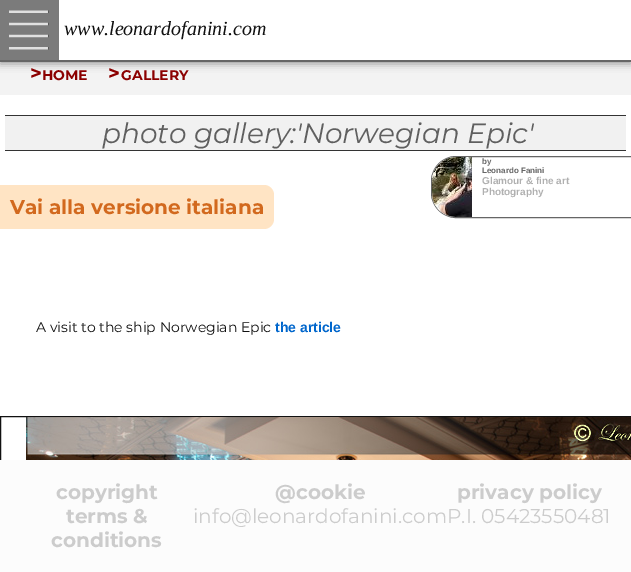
%!PS-Adobe-3.0
%%BoundingBox: 0 0 631 572
%%LanguageLevel: 3
%%Pages: 1
%%EndComments
%%BeginProlog
/setink { dup -16 bitshift 255 div exch dup -8 bitshift 255 and 255 div exch 255 and 255 div setrgbcolor } def
/usefont { [ exch dup neg 0 0 3 -1 roll 0 0 ] selectfont } def
/setalpha { dup .setfillconstantalpha .setstrokeconstantalpha } def
/rrect { 5 dict begin { /r /h /w /y /x } { exch def } forall
  x r add y moveto x w add y 2 copy h add r arct x w add y h add x 1 index r arct
  x y h add x y r arct x y 2 copy exch w add exch r arct closepath end } def
/softshadow { 12 dict begin { /a /b /q /h /w /y /x } { exch def } forall gsave /was 0 def
  9 -2 -9 { dup b mul 4 div /e exch def 1 sub .425 mul 2.718 exch exp 1 add a .99 .min exch div /now exch def
    1 1 now sub 1 was sub div sub setalpha /was now def
    w h .min e 2 mul add 0 gt { x e sub y e sub w e 2 mul add h e 2 mul add
      q e add b .6 mul add w h .min 2 div e add .min 0 .max rrect fill } if } for grestore end } def
/drawimage { 5 dict begin { /h /w /y /x /name } { exch def } forall
  gsave x y translate w h scale
  w h 8 [w 0 0 h 0 0] name (r) file false 3 colorimage grestore end } def
%%EndProlog
%%BeginSetup
<< /PageSize [631 572] /PageUsesTransparency true >> setpagedevice
%%EndSetup
%%Page: 1 1
0 .pushpdf14devicefilter
0 572 translate 1 -1 scale
4 setmiterlimit
16#FFFFFF setink
0 0 631 572 rectfill
16#F3F3F3 setink
0 62 631 33 rectfill
16#9A9A9A setink
0 2 631 62 0 4 1 softshadow
[
    [59 0 572 60 16#FFFFFF]
    [0 60 631 2 16#666666]
    [0 0 59 60 16#7B7B7B]
] { aload pop setink rectfill } forall
(img1.raw) 9 10 40 40 drawimage
/LiberationSerif-Italic 20 usefont
16#111111 setink
64 35 moveto (www.leonardofanini.com) show
/Montserrat-Bold 20 usefont
16#8B0000 setink
30 80 moveto (>) show
/Montserrat-Bold 14 usefont
42 80 moveto (HOME) show
/Montserrat-Bold 20 usefont
108 80 moveto (>) show
/Montserrat-Bold 14 usefont
121 80 moveto (GALLERY) show
[
    [5 116 621 34 16#F1F1F1]
    [5 115 621 1 16#333333]
    [5 150 621 1 16#333333]
] { aload pop setink rectfill } forall
/Montserrat-Italic 28 usefont
16#5F5F5F setink
102 143 moveto (photo gallery:'Norwegian Epic') show
16#666666 setink
431.5 156.5 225 61 24.5 rrect stroke
(img2.raw) 432 157 40 60 drawimage
/LiberationSans-Bold 8 usefont
482 164 moveto (by) show
482 173 moveto (Leonardo Fanini) show
/LiberationSans-Bold 10 usefont
16#B0B0B0 setink
482 184 moveto (Glamour & fine art) show
482 195 moveto (Photography) show
16#FFE4C4 setink
-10 185 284 44 10 rrect fill
/Montserrat-Bold 20 usefont
16#D2691E setink
10 214 moveto (Vai alla versione italiana) show
/Montserrat-Regular 14 usefont
16#111111 setink
36 332 moveto (A visit to the ship Norwegian Epic) show
/LiberationSans-Bold 14 usefont
16#0066CC setink
275 332 moveto (the article) show
16#111111 setink
0.5 416.5 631 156 rectstroke
(img3.raw) 26 417 605 43 drawimage
16#FCFCFC setink
0 460 631 112 rectfill
/Montserrat-Bold 20 usefont
16#CCCCCC setink
[
    [(copyright) 56 499]
    [(@cookie) 275 499]
    [(privacy policy) 457 499]
    [(terms &) 66 523]
    [(conditions) 51 547]
] { aload pop moveto show } forall
/Montserrat-Regular 20 usefont
193 523 moveto (info@leonardofanini.comP.I. 05423550481) show
.poppdf14devicefilter showpage
%%EOF
